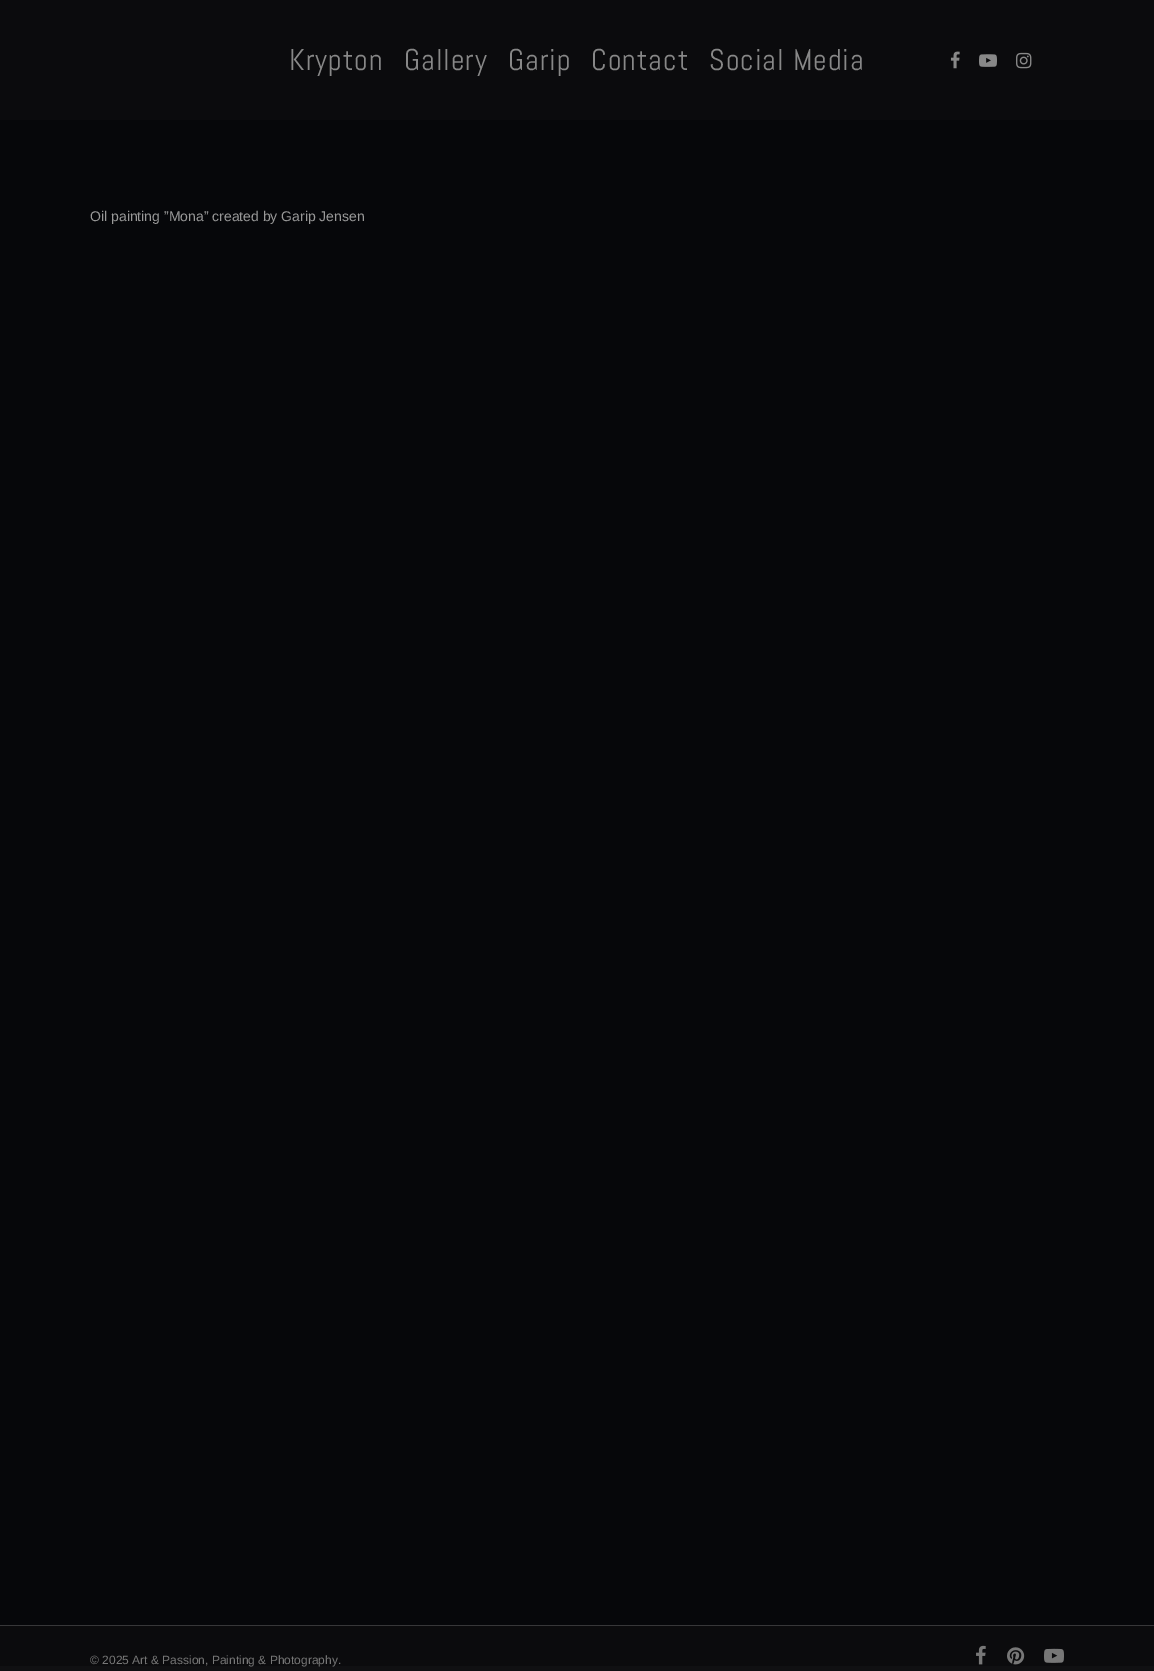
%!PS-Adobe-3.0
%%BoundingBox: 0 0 1154 1671
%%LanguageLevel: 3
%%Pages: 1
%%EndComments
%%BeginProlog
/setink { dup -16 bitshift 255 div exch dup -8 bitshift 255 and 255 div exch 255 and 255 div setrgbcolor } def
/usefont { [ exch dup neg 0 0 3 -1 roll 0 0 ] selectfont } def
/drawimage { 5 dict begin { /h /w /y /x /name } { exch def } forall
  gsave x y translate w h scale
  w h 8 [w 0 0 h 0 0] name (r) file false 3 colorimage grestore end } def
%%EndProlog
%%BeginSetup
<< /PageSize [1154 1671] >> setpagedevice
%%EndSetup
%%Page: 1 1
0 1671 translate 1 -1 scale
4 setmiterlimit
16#06070A setink
0 0 1154 1671 rectfill
16#0B0B0D setink
0 0 1154 120 rectfill
/Abel-Regular 30 usefont
16#888888 setink
289 70 moveto 1 0 (Krypton) ashow
404 70 moveto 1 0 (Gallery) ashow
508 70 moveto 1 0 (Garip) ashow
591 70 moveto 1 0 (Contact) ashow
709 70 moveto 1 0 (Social Media) ashow
(img1.raw) 950 51 10 18 drawimage
(img2.raw) 979 54 18 13 drawimage
(img3.raw) 1016 52 16 17 drawimage
/LiberationSans-Regular 14 usefont
16#999999 setink
90 221 moveto (Oil painting ”Mona” created by Garip Jensen) show
[
    [0 1666 1154 5 16#101012]
    [0 1626 1154 40 16#0B0B0D]
    [0 1625 1154 1 16#373739]
] { aload pop setink rectfill } forall
/LiberationSans-Regular 12 usefont
16#777777 setink
90 1664 moveto (© 2025 Art & Passion, Painting & Photography.) show
(img4.raw) 976 1645 10 20 drawimage
(img5.raw) 1007 1647 18 18 drawimage
(img6.raw) 1044 1648 20 15 drawimage
showpage
%%EOF
